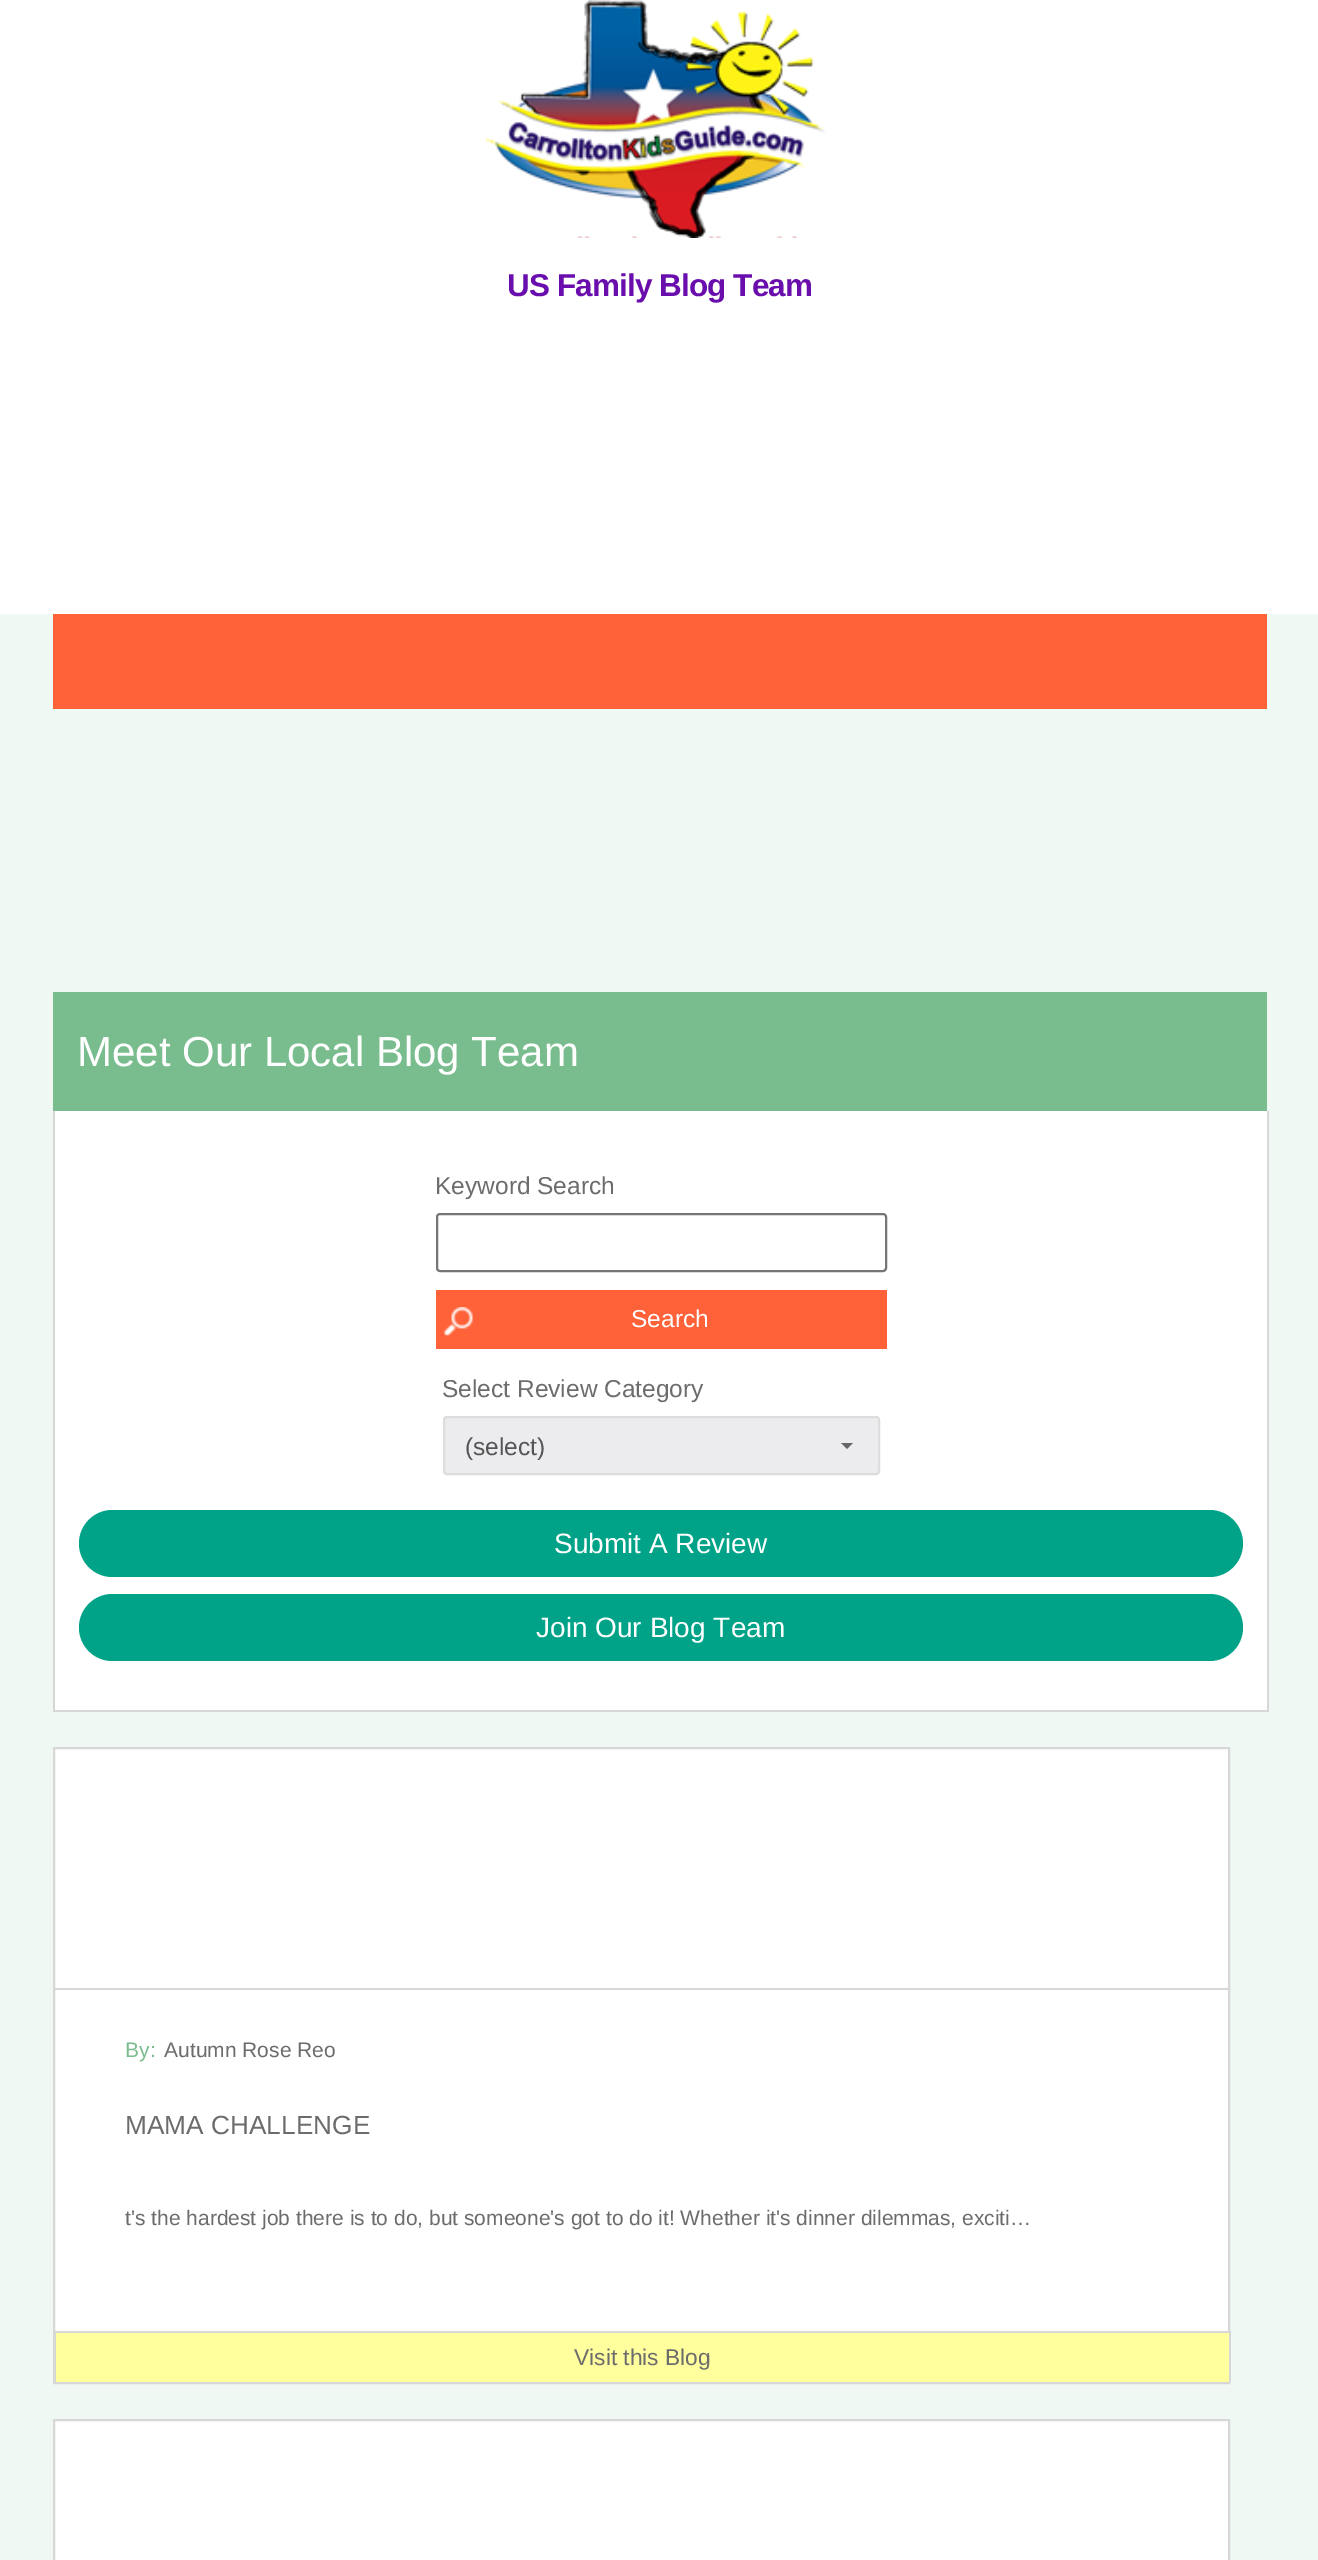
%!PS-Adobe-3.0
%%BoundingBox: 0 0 1318 2560
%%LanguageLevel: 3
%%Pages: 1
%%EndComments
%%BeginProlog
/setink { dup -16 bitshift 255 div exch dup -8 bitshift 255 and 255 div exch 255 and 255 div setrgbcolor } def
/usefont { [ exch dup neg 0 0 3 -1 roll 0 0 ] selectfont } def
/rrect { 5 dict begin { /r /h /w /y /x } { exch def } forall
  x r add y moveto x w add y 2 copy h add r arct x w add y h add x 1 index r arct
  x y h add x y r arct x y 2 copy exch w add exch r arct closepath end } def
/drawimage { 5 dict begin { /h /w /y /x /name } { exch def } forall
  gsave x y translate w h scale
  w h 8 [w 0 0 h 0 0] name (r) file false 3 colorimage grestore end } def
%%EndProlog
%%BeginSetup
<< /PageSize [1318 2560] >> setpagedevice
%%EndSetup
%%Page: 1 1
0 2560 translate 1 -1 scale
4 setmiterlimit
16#FFFFFF setink
0 0 1318 2560 rectfill
(img1.raw) 484 0 342 238 drawimage
/LiberationSans-Bold 31.5 usefont
16#6A0DAD setink
507 296 moveto -0.9 0 (US Family Blog Team) ashow
[
    [0 614 1318 1946 16#F0F8F3]
    [53 614 1214 95 16#FF6138]
    [53 992 1214 119 16#79BD8F]
] { aload pop setink rectfill } forall
/LiberationSans-Regular 42 usefont
16#FFFFFF setink
77 1066 moveto (Meet Our Local Blog Team) show
[
    [55 1111 1212 599 16#FFFFFF]
    [1267 1111 2 601 16#D7D7D7]
    [53 1710 1216 2 16#D7D7D7]
    [53 1111 2 601 16#D7D7D7]
] { aload pop setink rectfill } forall
/LiberationSans-Regular 24.5 usefont
16#6C6C6C setink
435 1194 moveto (Keyword Search) show
16#767676 setink
2 setlinewidth
437 1214 449 57 3 rrect stroke
16#FF6138 setink
436 1290 451 59 rectfill
(img2.raw) 444 1307 29 29 drawimage
16#FFFFFF setink
631 1327 moveto (Search) show
16#6C6C6C setink
442 1397 moveto (Select Review Category) show
16#ECECEF setink
443 1416 437 59 4 rrect fill
16#666666 setink
841 1443 moveto 847 1449 lineto 853 1443 lineto closepath fill
16#DDDDDD setink
444 1417 435 57 3 rrect stroke
16#555555 setink
465 1455 moveto (\(select\)) show
16#00A388 setink
79 1510 1164 67 33.5 rrect fill
/LiberationSans-Regular 28 usefont
16#FFFFFF setink
554 1553 moveto (Submit A Review) show
16#00A388 setink
79 1594 1164 67 33.5 rrect fill
16#FFFFFF setink
536 1637 moveto (Join Our Blog Team) show
55 1749 1173 582 rectfill
16#D7D7D7 setink
54 1748 1175 635 rectstroke
54 1988 1175 2 rectfill
/LiberationSans-Regular 21 usefont
16#79BD8E setink
125 2057 moveto (By:) show
16#6C6C6C setink
164 2057 moveto (Autumn Rose Reo) show
/LiberationSans-Regular 26.25 usefont
125 2134 moveto (MAMA CHALLENGE) show
/LiberationSans-Regular 21 usefont
125 2225 moveto (t's the hardest job there is to do, but someone's got to do it! Whether it's dinner dilemmas, exciti…) show
[
    [56 2333 1173 49 16#FFFF9D]
    [54 2331 1176 2 16#D7D7D7]
    [1230 2331 1 51 16#D7D7D7]
    [55 2331 1 51 16#D7D7D7]
] { aload pop setink rectfill } forall
/LiberationSans-Regular 22.75 usefont
16#6C6C6C setink
574 2365 moveto (Visit this Blog) show
16#FFFFFF setink
54 2420 moveto 1229 2420 lineto 1229 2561 lineto 54 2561 lineto closepath gsave fill grestore
16#D7D7D7 setink
stroke
showpage
%%EOF
